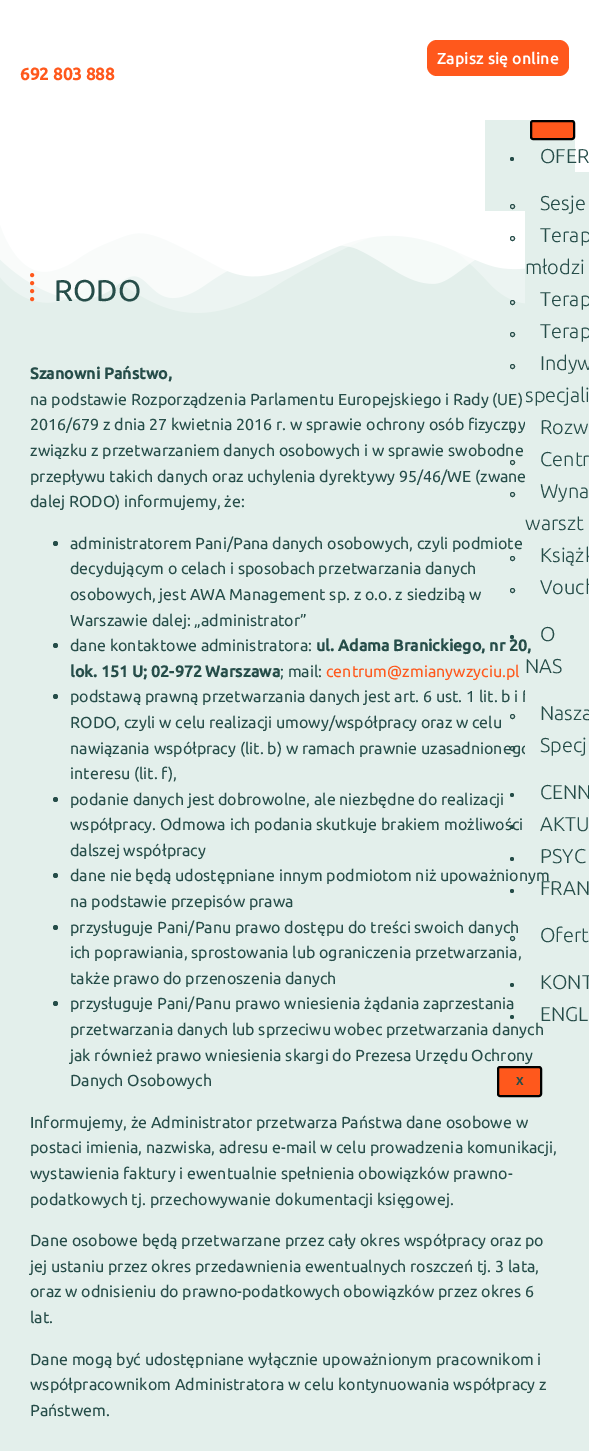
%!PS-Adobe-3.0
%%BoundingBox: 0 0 589 1451
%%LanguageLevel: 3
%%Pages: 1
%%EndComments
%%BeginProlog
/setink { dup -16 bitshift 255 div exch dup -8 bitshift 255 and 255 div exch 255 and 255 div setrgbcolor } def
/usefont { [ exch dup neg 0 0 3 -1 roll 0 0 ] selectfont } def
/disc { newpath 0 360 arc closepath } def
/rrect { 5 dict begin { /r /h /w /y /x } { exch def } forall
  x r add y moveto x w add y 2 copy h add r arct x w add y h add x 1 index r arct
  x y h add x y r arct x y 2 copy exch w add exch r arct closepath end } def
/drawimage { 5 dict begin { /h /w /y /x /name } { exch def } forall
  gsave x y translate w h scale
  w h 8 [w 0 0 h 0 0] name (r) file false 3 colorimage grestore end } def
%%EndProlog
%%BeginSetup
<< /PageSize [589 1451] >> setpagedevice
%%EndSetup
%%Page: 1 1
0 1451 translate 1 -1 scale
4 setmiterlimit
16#E3EFEB setink
0 0 589 1451 rectfill
16#FFFFFF setink
0 0 589 225 rectfill
16#FF581C setink
427 40 142 36 10 rrect fill
/Ubuntu-Medium 16 usefont
16#FFFFFF setink
437 64 moveto (Zapisz się online) show
/Ubuntu-Bold 17 usefont
16#FF581C setink
20 80 moveto (692 803 888) show
16#E3EFEB setink
485 120 90 91 rectfill
16#FF581C setink
531 121 43 18 2 rrect gsave fill grestore
16#000000 setink
2 setlinewidth
stroke
16#264D49 setink
512 159 2 disc fill
/Ubuntu-Light 20 usefont
540 163 moveto (OFER) show
/Ubuntu-Regular 16 usefont
30 430 moveto (2016/679 z dnia 27 kwietnia 2016 r. w sprawie ochrony osób fizyczny) show
30 482 moveto (przepływu takich danych oraz uchylenia dyrektywy 95/46/WE \(zwane) show
16#E3EFEB setink
525 172 64 310 rectfill
16#264D49 setink
1 setlinewidth
512.5 206.5 2 disc stroke
/Ubuntu-Light 20 usefont
540 210 moveto (Sesje) show
(img1.raw) 0 225 525 88 drawimage
512.5 238.5 2 disc stroke
540 242 moveto (Terap) show
525 274 moveto (młodzi) show
512.5 302.5 2 disc stroke
540 306 moveto (Terap) show
512.5 334.5 2 disc stroke
540 338 moveto (Terap) show
512.5 366.5 2 disc stroke
540 370 moveto (Indyw) show
525 402 moveto (specjali) show
512.5 430.5 2 disc stroke
540 434 moveto (Rozw) show
512.5 462.5 2 disc stroke
540 466 moveto (Centr) show
512.5 494.5 2 disc stroke
540 498 moveto (Wyna) show
525 530 moveto (warszt) show
512.5 558.5 2 disc stroke
540 562 moveto (Książk) show
512.5 590.5 2 disc stroke
540 594 moveto (Vouch) show
512 637 2 disc fill
540 641 moveto (O) show
525 673 moveto (NAS) show
/Ubuntu-Regular 16 usefont
70 702 moveto (podstawą prawną przetwarzania danych jest art. 6 ust. 1 lit. b i f) show
70 754 moveto (nawiązania współpracy \(lit. b\) w ramach prawnie uzasadnionego) show
16#E3EFEB setink
525 689 5 66 rectfill
16#264D49 setink
512.5 716.5 2 disc stroke
/Ubuntu-Light 20 usefont
540 720 moveto (Nasza) show
512.5 748.5 2 disc stroke
540 752 moveto (Specj) show
512 795 2 disc fill
540 799 moveto (CENN) show
512 827 2 disc fill
540 831 moveto (AKTU) show
512 859 2 disc fill
540 863 moveto (PSYC) show
512 891 2 disc fill
540 895 moveto (FRAN) show
512.5 938.5 2 disc stroke
540 942 moveto (Ofert) show
512 985 2 disc fill
540 989 moveto (KONT) show
512 1017 2 disc fill
540 1021 moveto (ENGL) show
16#FF581C setink
498 1067 43 29 2 rrect gsave fill grestore
16#000000 setink
2 setlinewidth
stroke
/Ubuntu-Bold 11 usefont
16#264D49 setink
516 1085 moveto 1 0 (X) ashow
16#FF581C setink
4 setlinewidth
1 setlinecap
[0 8] 0 setdash
32 275 moveto 32 305 lineto stroke
/Ubuntu-Regular 30 usefont
16#264D49 setink
54 301 moveto (RODO) show
/Ubuntu-Bold 16 usefont
30 379 moveto (Szanowni Państwo,) show
/Ubuntu-Regular 16 usefont
[
    [(na podstawie Rozporządzenia Parlamentu Europejskiego i Rady \(UE\)) 30 405]
    [(związku z przetwarzaniem danych osobowych i w sprawie swobodne) 30 456]
    [(dalej RODO\) informujemy, że:) 30 507]
] { aload pop moveto show } forall
55.5 543.5 2.5 disc fill
[
    [(administratorem Pani/Pana danych osobowych, czyli podmiote) 70 549]
    [(decydującym o celach i sposobach przetwarzania danych) 70 574]
    [(osobowych, jest AWA Management sp. z o.o. z siedzibą w) 70 600]
    [(Warszawie dalej: „administrator”) 70 626]
] { aload pop moveto show } forall
55.5 645.5 2.5 disc fill
70 651 moveto (dane kontaktowe administratora:) show
/Ubuntu-Bold 16 usefont
316 651 moveto (ul. Adama Branickiego, nr 20,) show
70 677 moveto (lok. 151 U; 02-972 Warszawa) show
/Ubuntu-Regular 16 usefont
280 677 moveto (; mail:) show
16#FF581C setink
326 677 moveto (centrum@zmianywzyciu.pl) show
16#264D49 setink
55.5 696.5 2.5 disc fill
70 728 moveto (RODO, czyli w celu realizacji umowy/współpracy oraz w celu) show
70 779 moveto (interesu \(lit. f\),) show
55.5 799.5 2.5 disc fill
[
    [(podanie danych jest dobrowolne, ale niezbędne do realizacji) 70 805]
    [(współpracy. Odmowa ich podania skutkuje brakiem możliwości) 70 830]
    [(dalszej współpracy) 70 856]
] { aload pop moveto show } forall
55.5 875.5 2.5 disc fill
70 881 moveto (dane nie będą udostępniane innym podmiotom niż upoważnionym) show
70 907 moveto (na podstawie przepisów prawa) show
55.5 927.5 2.5 disc fill
[
    [(przysługuje Pani/Panu prawo dostępu do treści swoich danych) 70 933]
    [(ich poprawiania, sprostowania lub ograniczenia przetwarzania,) 70 958]
    [(także prawo do przenoszenia danych) 70 984]
] { aload pop moveto show } forall
55.5 1003.5 2.5 disc fill
[
    [(przysługuje Pani/Panu prawo wniesienia żądania zaprzestania) 70 1009]
    [(przetwarzania danych lub sprzeciwu wobec przetwarzania danych) 70 1035]
    [(jak również prawo wniesienia skargi do Prezesa Urzędu Ochrony) 70 1061]
    [(Danych Osobowych) 70 1086]
    [(Informujemy, że Administrator przetwarza Państwa dane osobowe w) 30 1128]
    [(postaci imienia, nazwiska, adresu e-mail w celu prowadzenia komunikacji,) 30 1153]
    [(wystawienia faktury i ewentualnie spełnienia obowiązków prawno-) 30 1179]
    [(podatkowych tj. przechowywanie dokumentacji księgowej.) 30 1205]
    [(Dane osobowe będą przetwarzane przez cały okres współpracy oraz po) 30 1246]
    [(jej ustaniu przez okres przedawnienia ewentualnych roszczeń tj. 3 lata,) 30 1272]
    [(oraz w odnisieniu do prawno-podatkowych obowiązków przez okres 6) 30 1297]
    [(lat.) 30 1323]
    [(Dane mogą być udostępniane wyłącznie upoważnionym pracownikom i) 30 1365]
    [(współpracownikom Administratora w celu kontynuowania współpracy z) 30 1390]
    [(Państwem.) 30 1416]
] { aload pop moveto show } forall
showpage
%%EOF
